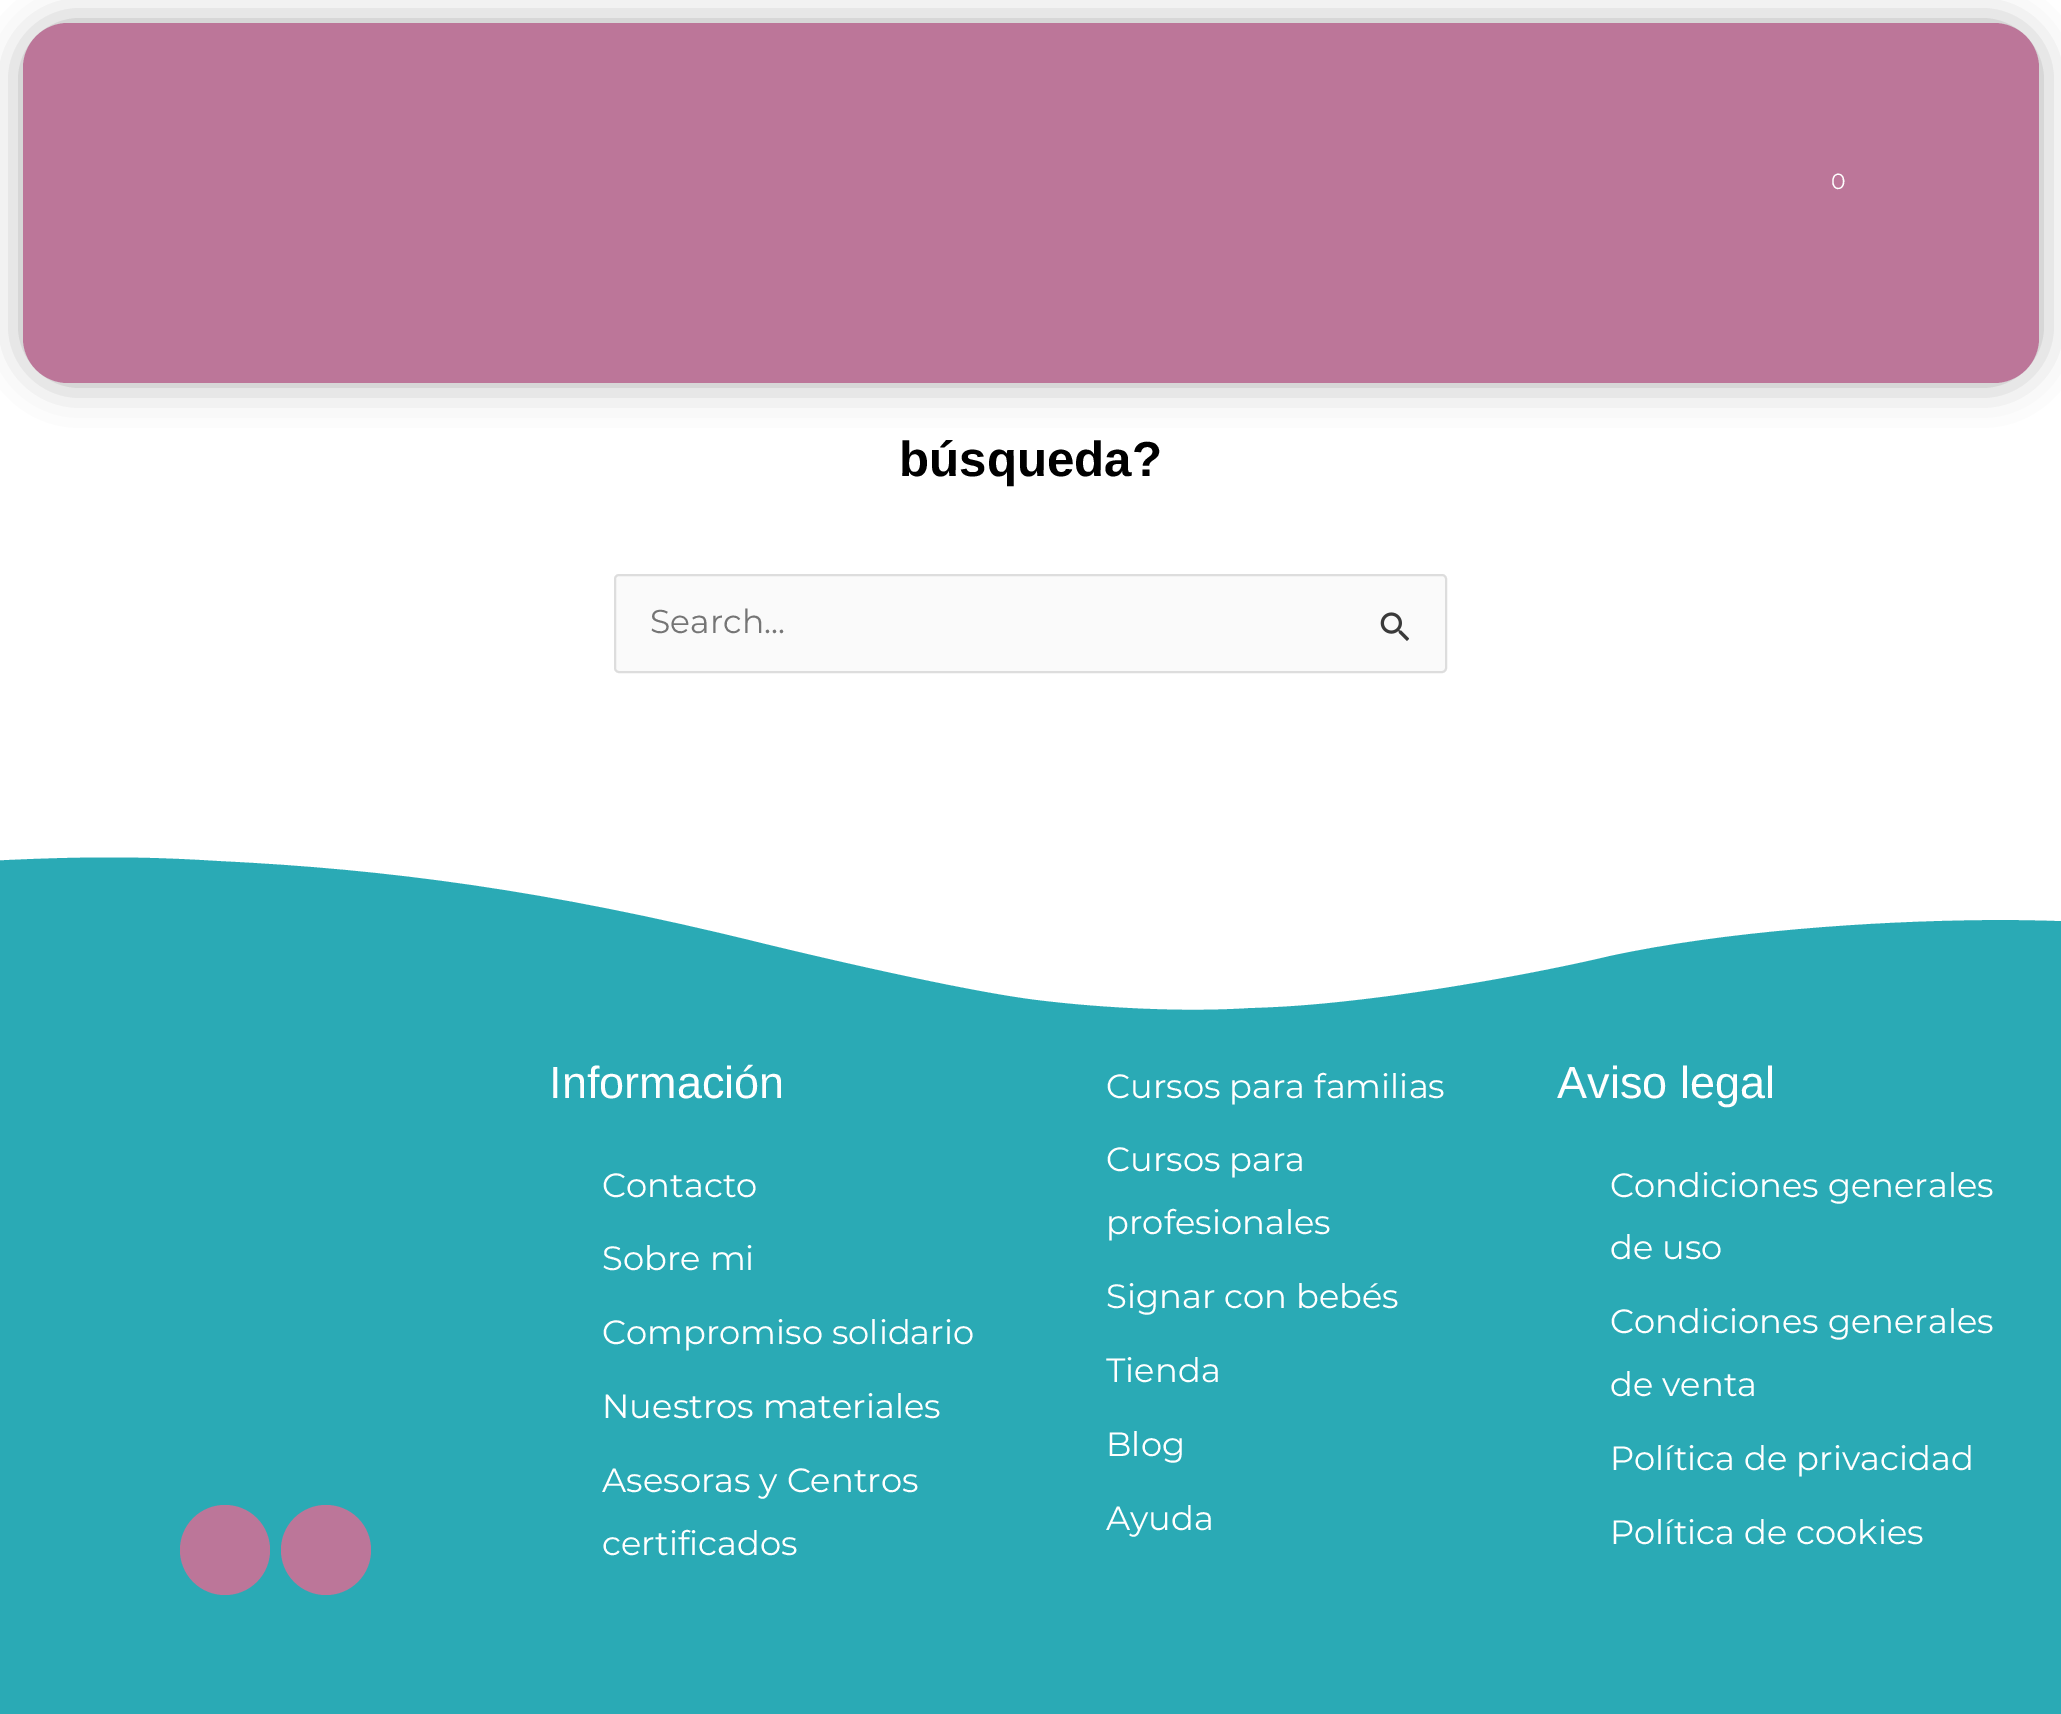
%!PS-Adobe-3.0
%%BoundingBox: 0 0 2061 1714
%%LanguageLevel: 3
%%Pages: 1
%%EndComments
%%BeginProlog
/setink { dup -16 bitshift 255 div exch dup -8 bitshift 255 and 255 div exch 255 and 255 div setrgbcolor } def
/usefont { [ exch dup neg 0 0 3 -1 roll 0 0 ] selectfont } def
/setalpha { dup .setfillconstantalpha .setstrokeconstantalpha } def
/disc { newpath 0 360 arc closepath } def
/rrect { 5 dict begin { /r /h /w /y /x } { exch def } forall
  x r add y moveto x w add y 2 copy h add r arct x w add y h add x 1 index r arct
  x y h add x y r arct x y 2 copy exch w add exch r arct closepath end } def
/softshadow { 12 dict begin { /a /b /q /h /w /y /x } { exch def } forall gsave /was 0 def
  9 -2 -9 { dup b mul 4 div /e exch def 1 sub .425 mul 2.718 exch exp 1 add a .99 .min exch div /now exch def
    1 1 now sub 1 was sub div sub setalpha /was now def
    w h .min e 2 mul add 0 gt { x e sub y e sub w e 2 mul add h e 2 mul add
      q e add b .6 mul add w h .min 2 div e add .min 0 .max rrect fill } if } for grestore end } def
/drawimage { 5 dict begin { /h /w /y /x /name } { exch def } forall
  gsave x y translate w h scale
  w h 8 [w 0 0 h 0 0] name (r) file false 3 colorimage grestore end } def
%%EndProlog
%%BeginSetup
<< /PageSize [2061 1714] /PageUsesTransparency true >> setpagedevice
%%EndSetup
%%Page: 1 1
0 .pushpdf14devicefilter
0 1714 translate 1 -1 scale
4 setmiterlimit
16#FFFFFF setink
0 0 2061 1714 rectfill
16#000000 setink
23 23 2016 360 45 20 0.32 softshadow
16#BC7699 setink
23 23 2016 360 45 rrect fill
/Montserrat-Thin 22 usefont
16#FFFFFF setink
1831 189 moveto (0) show
/LiberationSans-Bold 49.25 usefont
16#000000 setink
899 476 moveto (búsqueda?) show
16#FAFAFA setink
615 575 831 97 4 rrect gsave fill grestore
16#DDDDDD setink
2 setlinewidth
stroke
/Montserrat-Thin 33 usefont
16#757575 setink
650 633 moveto (Search...) show
(img1.raw) 1380 612 29 29 drawimage
16#2AAAB5 setink
0 857 2061 857 rectfill
gsave
0 851 2061 162 rectclip
16#FFFFFF setink
221 861 moveto 387 869 547 890 758 942 curveto 840 962 972 992 1038 1000 curveto 1103 1008 1184 1012 1248 1008 curveto 1276 1007 1311 1006 1388 996 curveto 1463 986 1550 970 1609 956 curveto 1724 931 1873 921 1982 920 curveto 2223 917 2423 970 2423 970 curveto 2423 850 lineto -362 850 lineto -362 906 lineto -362 906 -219 874 -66 864 curveto 85 854 156 857 221 861 curveto closepath fill
grestore
/LiberationSans-Regular 45 usefont
16#FFFFFF setink
549 1098 moveto (Información) show
/Montserrat-Thin 33.75 usefont
[
    [(Contacto) 602 1197]
    [(Sobre mi) 602 1270]
    [(Compromiso solidario) 602 1344]
    [(Nuestros materiales) 602 1418]
    [(Asesoras y Centros) 602 1492]
    [(certificados) 602 1555]
    [(Cursos para familias) 1106 1098]
    [(Cursos para) 1106 1171]
    [(profesionales) 1106 1234]
    [(Signar con bebés) 1106 1308]
    [(Tienda) 1106 1382]
    [(Blog) 1106 1456]
    [(Ayuda) 1106 1530]
] { aload pop moveto show } forall
/LiberationSans-Regular 45 usefont
1557 1098 moveto (Aviso legal) show
/Montserrat-Thin 33.75 usefont
[
    [(Condiciones generales) 1610 1197]
    [(de uso) 1610 1259]
    [(Condiciones generales) 1610 1333]
    [(de venta) 1610 1396]
    [(Política de privacidad) 1610 1470]
    [(Política de cookies) 1610 1544]
] { aload pop moveto show } forall
16#BC7699 setink
225 1550 45 disc fill
326 1550 45 disc fill
.poppdf14devicefilter showpage
%%EOF
